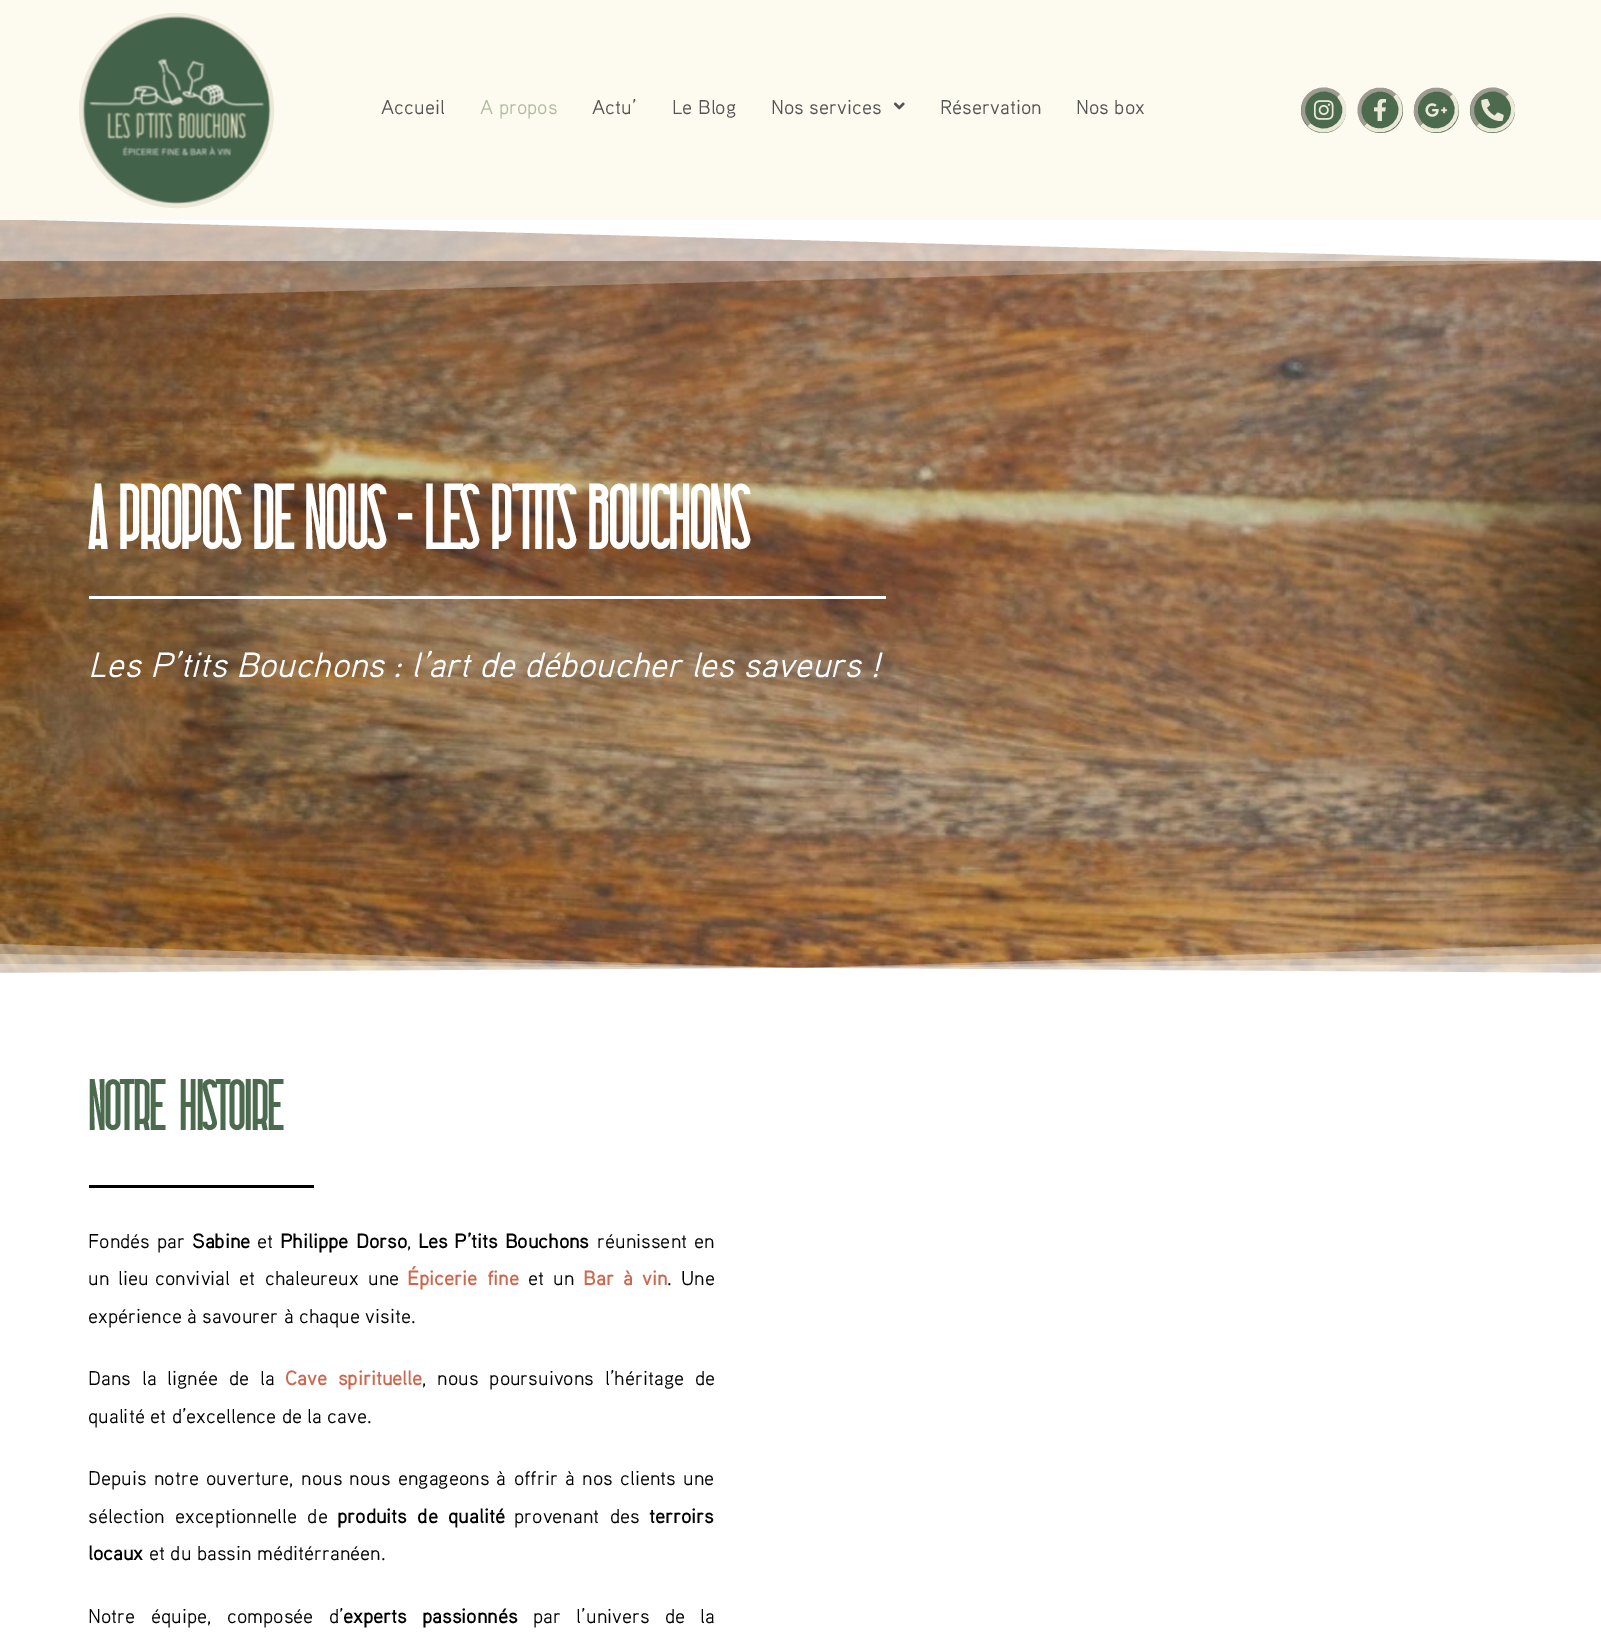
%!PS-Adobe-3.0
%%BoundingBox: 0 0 1601 1641
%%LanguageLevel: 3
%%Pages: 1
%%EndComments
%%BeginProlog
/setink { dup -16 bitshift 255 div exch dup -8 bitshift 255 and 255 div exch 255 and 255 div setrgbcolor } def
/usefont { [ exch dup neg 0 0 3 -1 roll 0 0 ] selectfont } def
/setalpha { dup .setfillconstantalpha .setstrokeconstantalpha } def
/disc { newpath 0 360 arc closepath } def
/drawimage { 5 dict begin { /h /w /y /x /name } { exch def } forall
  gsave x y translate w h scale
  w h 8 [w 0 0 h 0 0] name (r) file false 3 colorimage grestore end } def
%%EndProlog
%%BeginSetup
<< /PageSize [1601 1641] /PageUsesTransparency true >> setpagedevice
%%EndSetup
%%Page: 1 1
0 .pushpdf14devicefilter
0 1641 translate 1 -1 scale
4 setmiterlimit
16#FFFFFF setink
0 0 1601 1641 rectfill
(img7.raw) 0 220 1601 753 drawimage
0 219 moveto 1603 219 lineto 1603 261 lineto closepath fill
0.5 setalpha
0 220 1601 41 rectfill
0.25 setalpha
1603 219 moveto 0 219 lineto 0 299 lineto 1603 261 lineto closepath fill
1 setalpha
16#FDFAF0 setink
0 0 1601 220 rectfill
16#EDE8D8 setink
4 setlinewidth
176.5 110.5 95.5 disc stroke
(img1.raw) 82 16 189 188 drawimage
/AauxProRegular-Regular 20 usefont
16#535353 setink
381 114 moveto (Accueil) show
16#B1BA9D setink
480 114 moveto (A propos) show
16#535353 setink
[
    [(Actu’) 592 114]
    [(Le Blog) 672 114]
    [(Nos services) 771 114]
] { aload pop moveto show } forall
(img2.raw) 893 102 12 8 drawimage
940 114 moveto (Réservation) show
1076 114 moveto (Nos box) show
16#4C6B4E setink
1323.5 110.5 22.5 disc fill
16#EDE8D8 setink
3.8 setlinewidth
1338.5 95.5 moveto 1341 98.5 1343 102 1344 106 curveto 1348 126 1323.5 139 1309 124.5 curveto stroke
16#9E9B90 setink
1309 124.5 moveto 1306.5 121.5 1304.5 118 1303.5 114 curveto 1299.5 94 1324 81 1338.5 95.5 curveto stroke
(img3.raw) 1313 100 21 20 drawimage
16#4C6B4E setink
1380.5 110.5 22.5 disc fill
16#EDE8D8 setink
1394.5 95.5 moveto 1409 109.5 1396 134 1376 130 curveto 1372 129.5 1368.5 127.5 1365.5 124.5 curveto stroke
16#9E9B90 setink
1365.5 124.5 moveto 1351 110.5 1364 86 1384 90 curveto 1388 90.5 1391.5 92.5 1394.5 95.5 curveto stroke
(img4.raw) 1374 99 12 22 drawimage
16#4C6B4E setink
1436.5 110.5 22.5 disc fill
16#EDE8D8 setink
1451 95.5 moveto 1465 109.5 1452 134 1432 130 curveto 1428 129.5 1424.5 127.5 1421.5 124.5 curveto stroke
16#9E9B90 setink
1421.5 124.5 moveto 1407.5 110.5 1420.5 86 1440.5 90 curveto 1444.5 90.5 1448 92.5 1451 95.5 curveto stroke
(img5.raw) 1425 103 23 14 drawimage
16#4C6B4E setink
1492.5 110.5 22.5 disc fill
16#EDE8D8 setink
1507 95.5 moveto 1521.5 109.5 1508.5 134 1488.5 130 curveto 1484.5 129.5 1481 127.5 1478 124.5 curveto stroke
16#9E9B90 setink
1478 124.5 moveto 1475 121.5 1473 118 1472.5 114 curveto 1468.5 94 1493 81 1507 95.5 curveto stroke
(img6.raw) 1481 99 23 22 drawimage
/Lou-Bold 90 usefont
16#FFFFFF setink
88 549 moveto (A Propos de Nous - Les P'tits Bouchons) show
89 596 797 3 rectfill
/AauxProRegular-Italic 35 usefont
88 677 moveto (Les P’tits Bouchons : l’art de déboucher les saveurs !) show
0.33 setalpha
1601 975 moveto 1601 944 lineto 800 968 lineto -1 944 lineto -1 975 lineto closepath fill
1601 975 moveto 1601 954 lineto 800 968 lineto -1 954 lineto -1 975 lineto closepath fill
1601 975 moveto 1601 964 lineto 800 968 lineto -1 964 lineto -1 975 lineto closepath fill
1 setalpha
1601 975 moveto 1601 973 lineto 800 968 lineto -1 973 lineto -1 975 lineto closepath fill
/Lou-Bold 70 usefont
16#4C6B4E setink
88 1130 moveto 6 0 32 (Notre histoire) widthshow
16#000000 setink
89 1185 225 3 rectfill
/AauxProRegular-Regular 20 usefont
88 1248 moveto 1 0 32 (Fondés par) widthshow
/AauxProRegular-Bold 20 usefont
192 1248 moveto (Sabine) show
/AauxProRegular-Regular 20 usefont
257 1248 moveto (et) show
/AauxProRegular-Bold 20 usefont
280 1248 moveto 2 0 32 (Philippe Dorso) widthshow
/AauxProRegular-Regular 20 usefont
407 1248 moveto (,) show
/AauxProRegular-Bold 20 usefont
418 1248 moveto 1 0 32 (Les P’tits Bouchons) widthshow
/AauxProRegular-Regular 20 usefont
597 1248 moveto 2 0 32 (réunissent en) widthshow
88 1285 moveto 4 0 32 (un lieu) widthshow
155 1285 moveto 4 0 32 (convivial et chaleureux une) widthshow
/AauxProRegular-Bold 20 usefont
16#CA694F setink
407 1285 moveto 4 0 32 (Épicerie fine) widthshow
/AauxProRegular-Regular 20 usefont
16#000000 setink
528 1285 moveto 4 0 32 (et un) widthshow
/AauxProRegular-Bold 20 usefont
16#CA694F setink
583 1285 moveto 4 0 32 (Bar à vin) widthshow
/AauxProRegular-Regular 20 usefont
16#000000 setink
667 1285 moveto 4 0 32 (. Une) widthshow
88 1323 moveto (expérience à savourer à chaque visite.) show
88 1385 moveto 5.5 0 32 (Dans la lignée de la) widthshow
/AauxProRegular-Bold 20 usefont
16#CA694F setink
285 1385 moveto 5.5 0 32 (Cave spirituelle) widthshow
/AauxProRegular-Regular 20 usefont
16#000000 setink
422 1385 moveto 5.5 0 32 (, nous poursuivons l’héritage de) widthshow
88 1423 moveto (qualité et d’excellence de la cave.) show
88 1485 moveto 1.9 0 32 (Depuis notre ouverture, nous nous engageons à offrir à nos clients une) widthshow
88 1523 moveto 5 0 32 (sélection exceptionnelle de) widthshow
/AauxProRegular-Bold 20 usefont
337 1523 moveto 5 0 32 (produits de qualité) widthshow
/AauxProRegular-Regular 20 usefont
514 1523 moveto 5 0 32 (provenant des) widthshow
/AauxProRegular-Bold 20 usefont
649 1523 moveto (terroirs) show
88 1560 moveto (locaux) show
/AauxProRegular-Regular 20 usefont
149 1560 moveto (et du bassin méditérranéen.) show
88 1623 moveto 10 0 32 (Notre équipe, composée d’) widthshow
/AauxProRegular-Bold 20 usefont
343 1623 moveto 10 0 32 (experts passionnés) widthshow
/AauxProRegular-Regular 20 usefont
533 1623 moveto 10 0 32 (par l’univers de la) widthshow
.poppdf14devicefilter showpage
%%EOF
